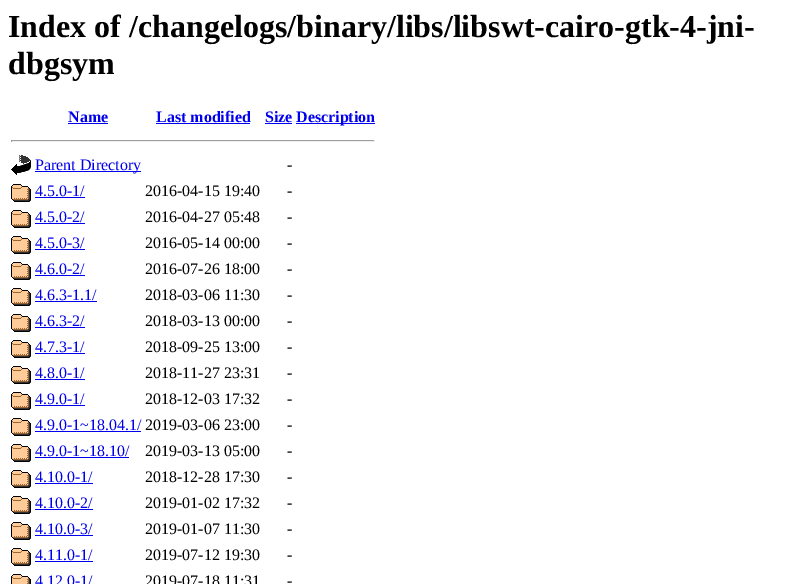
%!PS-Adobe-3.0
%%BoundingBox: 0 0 805 584
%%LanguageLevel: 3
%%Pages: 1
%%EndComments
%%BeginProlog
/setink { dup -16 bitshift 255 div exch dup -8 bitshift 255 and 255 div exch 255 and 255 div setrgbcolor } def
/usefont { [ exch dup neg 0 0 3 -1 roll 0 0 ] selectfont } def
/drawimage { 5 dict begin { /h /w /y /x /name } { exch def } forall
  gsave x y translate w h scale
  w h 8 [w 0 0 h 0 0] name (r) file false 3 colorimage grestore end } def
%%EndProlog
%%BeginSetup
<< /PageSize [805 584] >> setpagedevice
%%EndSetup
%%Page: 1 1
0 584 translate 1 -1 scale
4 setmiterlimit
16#FFFFFF setink
0 0 805 584 rectfill
/LiberationSerif-Bold 32 usefont
16#000000 setink
8 37 moveto (Index of /changelogs/binary/libs/libswt-cairo-gtk-4-jni-) show
8 74 moveto (dbgsym) show
/LiberationSerif-Bold 16 usefont
16#0000EE setink
68 122 moveto (Name) show
68 123 40 1 rectfill
156 122 moveto (Last modified) show
156 123 94 1 rectfill
265 122 moveto (Size) show
265 123 27 1 rectfill
296 123 79 1 rectfill
296 122 moveto (Description) show
[
    [11 140 364 1 16#9F9F9F]
    [374 140 1 2 16#EEEEEE]
    [11 141 364 1 16#EEEEEE]
    [11 140 1 2 16#9F9F9F]
] { aload pop setink rectfill } forall
(img1.raw) 11 155 20 20 drawimage
16#0000EE setink
35 171 106 1 rectfill
/LiberationSerif-Regular 16 usefont
35 170 moveto (Parent Directory) show
16#000000 setink
287 170 moveto (-) show
(img2.raw) 11 184 20 18 drawimage
16#0000EE setink
35 196 moveto (4.5.0-1/) show
35 197 50 1 rectfill
16#000000 setink
145 196 moveto (2016-04-15 19:40) show
287 196 moveto (-) show
(img2.raw) 11 210 20 18 drawimage
16#0000EE setink
35 222 moveto (4.5.0-2/) show
35 223 50 1 rectfill
16#000000 setink
145 222 moveto (2016-04-27 05:48) show
287 222 moveto (-) show
(img2.raw) 11 236 20 18 drawimage
16#0000EE setink
35 248 moveto (4.5.0-3/) show
35 249 50 1 rectfill
16#000000 setink
145 248 moveto (2016-05-14 00:00) show
287 248 moveto (-) show
(img2.raw) 11 262 20 18 drawimage
16#0000EE setink
35 274 moveto (4.6.0-2/) show
35 275 50 1 rectfill
16#000000 setink
145 274 moveto (2016-07-26 18:00) show
287 274 moveto (-) show
(img2.raw) 11 288 20 18 drawimage
16#0000EE setink
35 300 moveto (4.6.3-1.1/) show
35 301 62 1 rectfill
16#000000 setink
145 300 moveto (2018-03-06 11:30) show
287 300 moveto (-) show
(img2.raw) 11 314 20 18 drawimage
16#0000EE setink
35 326 moveto (4.6.3-2/) show
35 327 50 1 rectfill
16#000000 setink
145 326 moveto (2018-03-13 00:00) show
287 326 moveto (-) show
(img2.raw) 11 340 20 18 drawimage
16#0000EE setink
35 352 moveto (4.7.3-1/) show
35 353 50 1 rectfill
16#000000 setink
145 352 moveto (2018-09-25 13:00) show
287 352 moveto (-) show
(img2.raw) 11 366 20 18 drawimage
16#0000EE setink
35 378 moveto (4.8.0-1/) show
35 379 50 1 rectfill
16#000000 setink
145 378 moveto (2018-11-27 23:31) show
287 378 moveto (-) show
(img2.raw) 11 392 20 18 drawimage
16#0000EE setink
35 404 moveto (4.9.0-1/) show
35 405 50 1 rectfill
16#000000 setink
145 404 moveto (2018-12-03 17:32) show
287 404 moveto (-) show
(img2.raw) 11 418 20 18 drawimage
16#0000EE setink
35 430 moveto (4.9.0-1~18.04.1/) show
35 431 106 1 rectfill
16#000000 setink
145 430 moveto (2019-03-06 23:00) show
287 430 moveto (-) show
(img2.raw) 11 444 20 18 drawimage
16#0000EE setink
35 456 moveto (4.9.0-1~18.10/) show
35 457 94 1 rectfill
16#000000 setink
145 456 moveto (2019-03-13 05:00) show
287 456 moveto (-) show
(img2.raw) 11 470 20 18 drawimage
16#0000EE setink
35 482 moveto (4.10.0-1/) show
35 483 58 1 rectfill
16#000000 setink
145 482 moveto (2018-12-28 17:30) show
287 482 moveto (-) show
(img2.raw) 11 496 20 18 drawimage
16#0000EE setink
35 508 moveto (4.10.0-2/) show
35 509 58 1 rectfill
16#000000 setink
145 508 moveto (2019-01-02 17:32) show
287 508 moveto (-) show
(img2.raw) 11 522 20 18 drawimage
16#0000EE setink
35 534 moveto (4.10.0-3/) show
35 535 58 1 rectfill
16#000000 setink
145 534 moveto (2019-01-07 11:30) show
287 534 moveto (-) show
(img2.raw) 11 548 20 18 drawimage
16#0000EE setink
35 560 moveto (4.11.0-1/) show
35 561 58 1 rectfill
16#000000 setink
145 560 moveto (2019-07-12 19:30) show
287 560 moveto (-) show
(img3.raw) 11 574 20 10 drawimage
16#0000EE setink
35 586 moveto (4.12.0-1/) show
16#000000 setink
145 586 moveto (2019-07-18 11:31) show
287 586 moveto (-) show
showpage
%%EOF
